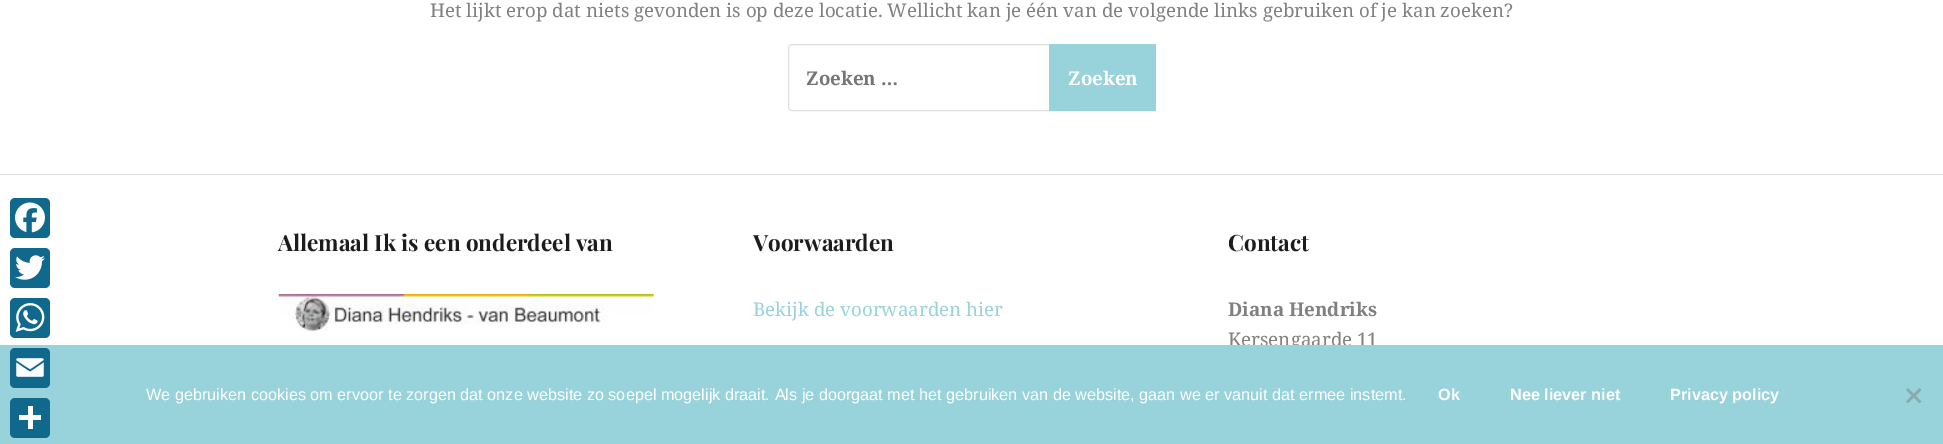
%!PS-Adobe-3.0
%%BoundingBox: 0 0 1943 444
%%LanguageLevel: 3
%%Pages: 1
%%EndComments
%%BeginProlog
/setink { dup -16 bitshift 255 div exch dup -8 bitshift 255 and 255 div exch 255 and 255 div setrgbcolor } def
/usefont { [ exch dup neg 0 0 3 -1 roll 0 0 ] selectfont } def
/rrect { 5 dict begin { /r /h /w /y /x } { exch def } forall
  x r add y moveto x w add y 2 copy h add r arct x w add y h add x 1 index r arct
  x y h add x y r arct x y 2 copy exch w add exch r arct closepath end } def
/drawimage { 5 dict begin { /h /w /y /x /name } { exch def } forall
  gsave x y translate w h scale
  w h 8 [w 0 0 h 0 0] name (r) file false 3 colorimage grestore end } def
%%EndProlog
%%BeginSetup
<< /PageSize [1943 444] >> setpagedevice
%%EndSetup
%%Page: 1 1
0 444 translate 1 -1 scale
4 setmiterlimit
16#FFFFFF setink
0 0 1943 444 rectfill
16#11688D setink
10 198 40 40 5 rrect fill
(img1.raw) 15 202 30 31 drawimage
10 248 40 40 5 rrect fill
(img2.raw) 15 255 30 25 drawimage
10 298 40 40 5 rrect fill
(img3.raw) 15 303 30 29 drawimage
/NotoSerif-Regular 18.75 usefont
16#808080 setink
1228 346 moveto (Kersengaarde 11) show
16#98D3DB setink
0 345 1943 99 rectfill
16#11688D setink
10 348 40 40 5 rrect fill
(img4.raw) 16 358 28 19 drawimage
10 398 40 40 5 rrect fill
16#FFFFFF setink
28 406 5 23 rectfill
19 415 22 5 rectfill
16#808080 setink
430 17 moveto (Het lijkt erop dat niets gevonden is op deze locatie. Wellicht kan je één van de volgende links gebruiken of je kan zoeken?) show
16#E0E0E0 setink
788.5 44.5 294 66 3.5 rrect stroke
/NotoSerif-Bold 18.75 usefont
16#757575 setink
806 85 moveto (Zoeken …) show
16#98D3DB setink
1049 44 107 67 rectfill
16#FFFFFF setink
1068 85 moveto (Zoeken) show
16#E0E0E0 setink
0 174 1943 1 rectfill
/PlayfairDisplay-Bold 22.5 usefont
16#1C1C1C setink
278 251 moveto (Allemaal Ik is een onderdeel van) show
(img5.raw) 278 294 376 38 drawimage
753 251 moveto (Voorwaarden) show
/NotoSerif-Regular 18.75 usefont
16#98D3DB setink
753 316 moveto (Bekijk de voorwaarden hier) show
/PlayfairDisplay-Bold 22.5 usefont
16#1C1C1C setink
1228 251 moveto (Contact) show
/NotoSerif-Bold 18.75 usefont
16#808080 setink
1228 316 moveto (Diana Hendriks) show
/LiberationSans-Regular 16.25 usefont
16#FFFFFF setink
146 400 moveto (We gebruiken cookies om ervoor te zorgen dat onze website zo soepel mogelijk draait. Als je doorgaat met het gebruiken van de website, gaan we er vanuit dat ermee instemt.) show
/LiberationSans-Bold 16.25 usefont
[
    [(Ok) 1438 400]
    [(Nee liever niet) 1510 400]
    [(Privacy policy) 1670 400]
] { aload pop moveto show } forall
16#8CAAAE setink
1919.5 388 moveto 1921.5 390 lineto 1908 403 lineto 1906 401.5 lineto closepath fill
1906 390 moveto 1908 388 lineto 1921.5 401.5 lineto 1919.5 403 lineto closepath fill
showpage
%%EOF
